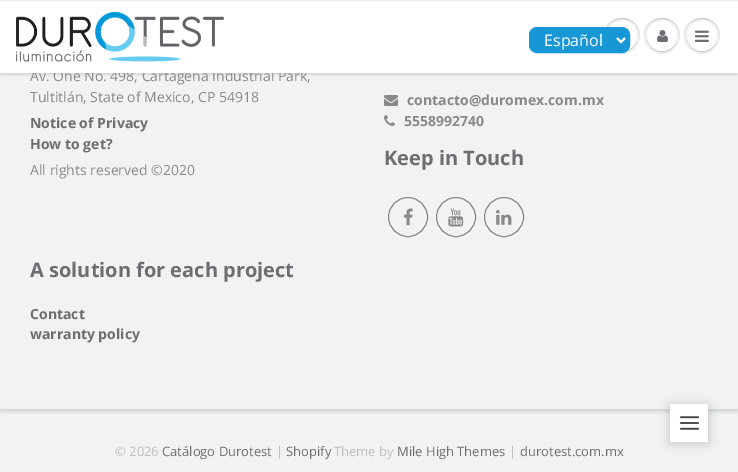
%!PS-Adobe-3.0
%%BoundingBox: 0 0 738 472
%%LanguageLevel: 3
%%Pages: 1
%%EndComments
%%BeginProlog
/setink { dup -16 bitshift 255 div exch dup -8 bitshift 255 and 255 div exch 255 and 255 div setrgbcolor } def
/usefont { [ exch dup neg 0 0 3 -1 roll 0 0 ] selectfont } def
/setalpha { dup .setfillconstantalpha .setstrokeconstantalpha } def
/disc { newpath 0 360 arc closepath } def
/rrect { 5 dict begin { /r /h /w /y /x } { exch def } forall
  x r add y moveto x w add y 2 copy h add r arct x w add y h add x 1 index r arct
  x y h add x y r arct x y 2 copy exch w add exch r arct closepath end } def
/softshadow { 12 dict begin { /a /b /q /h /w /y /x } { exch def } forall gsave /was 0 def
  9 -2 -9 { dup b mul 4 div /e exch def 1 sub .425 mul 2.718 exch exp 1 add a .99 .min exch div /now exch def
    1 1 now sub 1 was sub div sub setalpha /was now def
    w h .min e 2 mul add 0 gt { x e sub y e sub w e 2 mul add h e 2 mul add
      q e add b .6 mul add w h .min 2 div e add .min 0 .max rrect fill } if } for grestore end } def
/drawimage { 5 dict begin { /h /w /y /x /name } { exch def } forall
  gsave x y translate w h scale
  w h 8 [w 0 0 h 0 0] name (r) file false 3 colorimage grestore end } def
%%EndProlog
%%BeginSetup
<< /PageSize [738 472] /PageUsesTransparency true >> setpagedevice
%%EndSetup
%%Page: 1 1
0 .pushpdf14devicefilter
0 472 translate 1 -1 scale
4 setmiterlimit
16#F2F2F2 setink
0 0 738 472 rectfill
16#D1D7D7 setink
0 -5 738 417 0 1.5 1 softshadow
16#F2F2F2 setink
0 73 738 336 rectfill
16#0B191C setink
0 2 738 73 0 1 0.12 softshadow
/OpenSans-Regular 14 usefont
16#898989 setink
30 81 moveto (Av. One No. 498, Cartagena Industrial Park,) show
16#FFFFFF setink
0 1 738 72 rectfill
16#ECEFEF setink
0 0 738 1 rectfill
(img1.raw) 16 12 208 50 drawimage
16#EDEFEF setink
622 36 18 disc fill
16#C9CBCB setink
622 19 moveto 634 19 640 27.5 640 36.5 curveto 640 33 639 29 637 26 curveto 627 11 603.5 18.5 604 36.5 curveto 604 27.5 610 19 622 19 curveto closepath fill
637 36.5 moveto 636.5 55.5 607.5 55.5 607 36.5 curveto 606.5 51.5 626 58 634.5 45.5 curveto 636 43 637 39.5 637 36.5 curveto closepath fill
16#FFFFFF setink
622 36 15 disc fill
622 22 moveto 632 22 637 29 637 36.5 curveto 637 33.5 636 30 634.5 27.5 curveto 626 15 606.5 21.5 607 36.5 curveto 607 29 612 22 622 22 curveto closepath fill
16#EDEFEF setink
662 36 18 disc fill
16#C9CBCB setink
662 19 moveto 674 19 680 27.5 680 36.5 curveto 680 33 679 29 677 26 curveto 667 11 643.5 18.5 644 36.5 curveto 644 27.5 650 19 662 19 curveto closepath fill
677 36.5 moveto 676.5 55.5 647.5 55.5 647 36.5 curveto 646.5 51.5 666 58 674.5 45.5 curveto 676 43 677 39.5 677 36.5 curveto closepath fill
16#FFFFFF setink
662 36 15 disc fill
662 22 moveto 672 22 677 29 677 36.5 curveto 677 33.5 676 30 674.5 27.5 curveto 666 15 646.5 21.5 647 36.5 curveto 647 29 652 22 662 22 curveto closepath fill
(img2.raw) 657 30 11 12 drawimage
16#EDEFEF setink
702 36 18 disc fill
16#C9CBCB setink
702 19 moveto 714 19 720 27.5 720 36.5 curveto 720 33 719 29 717 26 curveto 707 11 683.5 18.5 684 36.5 curveto 684 27.5 690 19 702 19 curveto closepath fill
717 36.5 moveto 716.5 55.5 687.5 55.5 687 36.5 curveto 686.5 51.5 706 58 714.5 45.5 curveto 716 43 717 39.5 717 36.5 curveto closepath fill
16#FFFFFF setink
702 36 15 disc fill
702 22 moveto 712 22 717 29 717 36.5 curveto 717 33.5 716 30 714.5 27.5 curveto 706 15 686.5 21.5 687 36.5 curveto 687 29 692 22 702 22 curveto closepath fill
(img3.raw) 695 30 14 12 drawimage
16#1897D7 setink
529.5 27.5 100 25 7.5 rrect gsave fill grestore
stroke
16#FFFFFF setink
2 setlinewidth
617 38 moveto 621 42 lineto 625 38 lineto stroke
/OpenSans-Regular 16 usefont
544 46 moveto (Español) show
/OpenSans-Regular 14 usefont
16#898989 setink
30 102 moveto (Tultitlán, State of Mexico, CP 54918) show
/OpenSans-Bold 14 usefont
16#6D6E71 setink
30 128 moveto (Notice of Privacy) show
30 149 moveto (How to get?) show
/OpenSans-Regular 14 usefont
16#898989 setink
30 175 moveto (All rights reserved ©2020) show
(img4.raw) 384 95 14 11 drawimage
/OpenSans-Bold 14 usefont
407 105 moveto (contacto@duromex.com.mx) show
(img5.raw) 384 115 11 11 drawimage
404 126 moveto (5558992740) show
/OpenSans-Bold 20 usefont
16#6D6E71 setink
384 165 moveto (Keep in Touch) show
16#898989 setink
1 setlinewidth
408 217 19.5 disc stroke
(img6.raw) 403 208 10 18 drawimage
456 217 19.5 disc stroke
(img7.raw) 448 208 16 19 drawimage
504 217 19.5 disc stroke
(img8.raw) 496 210 16 15 drawimage
16#6D6E71 setink
30 277 moveto (A solution for each project) show
/OpenSans-Bold 14 usefont
30 319 moveto (Contact) show
30 339 moveto (warranty policy) show
/OpenSans-Regular 13 usefont
16#BCBEC0 setink
115 456 moveto (© 2026) show
16#6D6E71 setink
162 456 moveto (Catálogo Durotest) show
16#BCBEC0 setink
276 456 moveto (|) show
16#6D6E71 setink
286 456 moveto (Shopify) show
16#BCBEC0 setink
334 456 moveto (Theme by) show
16#6D6E71 setink
397 456 moveto (Mile High Themes) show
16#BCBEC0 setink
509 456 moveto (|) show
16#6D6E71 setink
520 456 moveto (durotest.com.mx) show
16#000000 setink
670 405 38 38 0 5 0.2 softshadow
16#FFFFFF setink
670 404 38 38 rectfill
(img9.raw) 679 416 21 14 drawimage
.poppdf14devicefilter showpage
%%EOF
